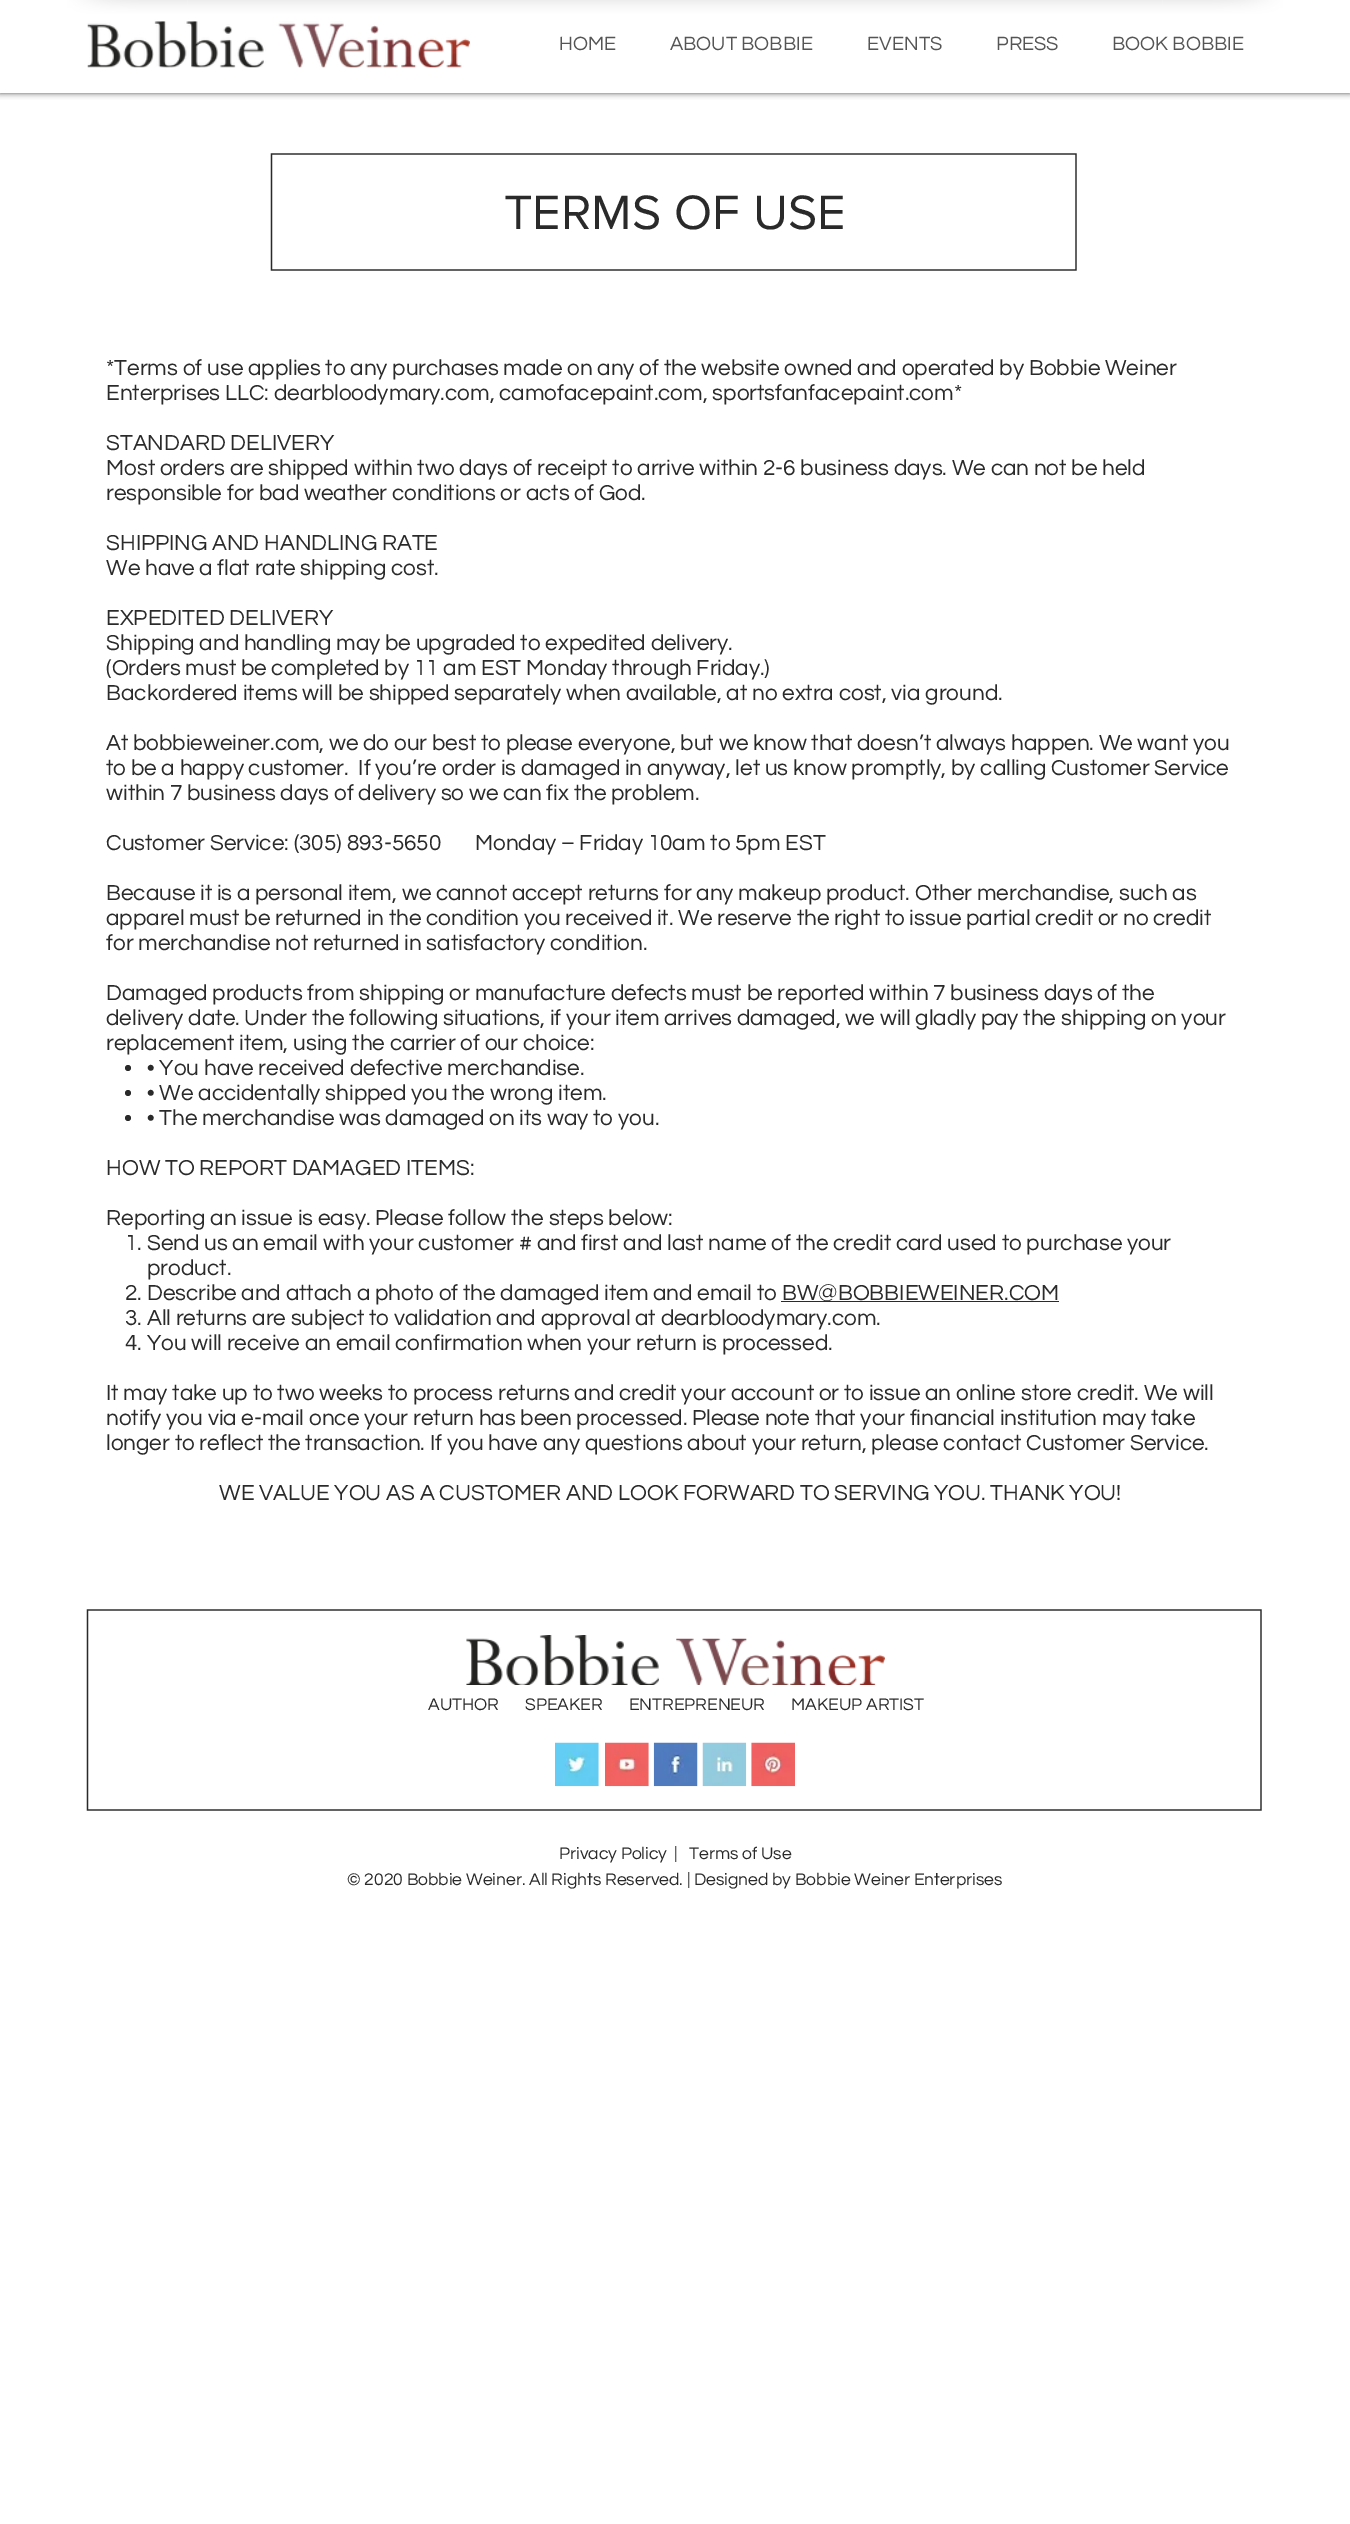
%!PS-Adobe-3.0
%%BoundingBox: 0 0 1350 2524
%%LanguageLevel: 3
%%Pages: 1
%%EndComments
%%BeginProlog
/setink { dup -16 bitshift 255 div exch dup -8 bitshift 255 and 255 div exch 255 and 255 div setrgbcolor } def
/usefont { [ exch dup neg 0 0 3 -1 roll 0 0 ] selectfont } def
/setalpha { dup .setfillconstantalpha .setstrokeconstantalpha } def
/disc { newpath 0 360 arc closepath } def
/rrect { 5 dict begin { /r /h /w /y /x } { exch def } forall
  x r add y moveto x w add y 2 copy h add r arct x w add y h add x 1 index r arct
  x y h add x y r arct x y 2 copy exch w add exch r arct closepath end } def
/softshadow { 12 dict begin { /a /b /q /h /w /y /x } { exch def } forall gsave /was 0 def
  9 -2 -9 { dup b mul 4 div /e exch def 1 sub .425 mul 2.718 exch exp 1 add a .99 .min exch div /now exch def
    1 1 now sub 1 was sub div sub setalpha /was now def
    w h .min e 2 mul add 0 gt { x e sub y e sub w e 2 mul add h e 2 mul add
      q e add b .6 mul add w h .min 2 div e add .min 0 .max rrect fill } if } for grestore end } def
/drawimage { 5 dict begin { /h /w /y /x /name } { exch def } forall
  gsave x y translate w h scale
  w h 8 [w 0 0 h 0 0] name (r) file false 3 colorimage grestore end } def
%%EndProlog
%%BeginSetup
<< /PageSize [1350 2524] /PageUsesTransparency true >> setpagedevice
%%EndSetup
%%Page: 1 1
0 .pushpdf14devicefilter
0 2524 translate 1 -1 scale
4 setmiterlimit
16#FFFFFF setink
0 0 1350 2524 rectfill
(img1.raw) 67 0 121 14 drawimage
(img2.raw) 187 0 976 14 drawimage
(img3.raw) 1162 0 121 14 drawimage
gsave
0 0 moveto 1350 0 lineto 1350 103 lineto 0 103 lineto closepath 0 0 moveto 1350 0 lineto 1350 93 lineto 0 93 lineto closepath eoclip newpath
16#000000 setink
0 0 1350 93 0 3 0.7 softshadow
grestore
0.8 setalpha
0 0 1350 93 rectfill
1 setalpha
(img4.raw) 87 21 383 47 drawimage
/Questrial-Regular 20 usefont
16#555555 setink
[
    [(HOME) 559 50]
    [(ABOUT BOBBIE) 670 50]
    [(EVENTS) 867 50]
    [(PRESS) 996 50]
    [(BOOK BOBBIE) 1112 50]
] { aload pop moveto show } forall
16#2A2A2A setink
1.2 setlinewidth
1076 154 moveto 1076 270 lineto 271.5 270 lineto 271.5 154 lineto closepath stroke
/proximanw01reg-Regular 50 usefont
504 229 moveto (TERMS OF USE) show
/Questrial-Regular 22.5 usefont
[
    [(*Terms of use applies to any purchases made on any of the website owned and operated by Bobbie Weiner) 106 375]
    [(Enterprises LLC: dearbloodymary.com, camofacepaint.com, sportsfanfacepaint.com*) 106 400]
    [(STANDARD DELIVERY) 106 450]
    [(Most orders are shipped within two days of receipt to arrive within 2-6 business days. We can not be held) 106 475]
    [(responsible for bad weather conditions or acts of God.) 106 500]
    [(SHIPPING AND HANDLING RATE) 106 550]
    [(We have a flat rate shipping cost.) 106 575]
    [(EXPEDITED DELIVERY) 106 625]
    [(Shipping and handling may be upgraded to expedited delivery.) 106 650]
    [(\(Orders must be completed by 11 am EST Monday through Friday.\)) 106 675]
    [(Backordered items will be shipped separately when available, at no extra cost, via ground.) 106 700]
    [(At bobbieweiner.com, we do our best to please everyone, but we know that doesn’t always happen. We want you) 106 750]
    [(to be a happy customer.  If you’re order is damaged in anyway, let us know promptly, by calling Customer Service) 106 775]
    [(within 7 business days of delivery so we can fix the problem.) 106 800]
    [(Customer Service: \(305\) 893-5650       Monday – Friday 10am to 5pm EST) 106 850]
    [(Because it is a personal item, we cannot accept returns for any makeup product. Other merchandise, such as) 106 900]
    [(apparel must be returned in the condition you received it. We reserve the right to issue partial credit or no credit) 106 925]
    [(for merchandise not returned in satisfactory condition.) 106 950]
    [(Damaged products from shipping or manufacture defects must be reported within 7 business days of the) 106 1000]
    [(delivery date. Under the following situations, if your item arrives damaged, we will gladly pay the shipping on your) 106 1025]
    [(replacement item, using the carrier of our choice:) 106 1050]
] { aload pop moveto show } forall
128 1068 3 disc fill
147 1075 moveto (• You have received defective merchandise.) show
128 1093 3 disc fill
147 1100 moveto (• We accidentally shipped you the wrong item.) show
128 1118 3 disc fill
[
    [(• The merchandise was damaged on its way to you.) 147 1125]
    [(HOW TO REPORT DAMAGED ITEMS:) 106 1175]
    [(Reporting an issue is easy. Please follow the steps below:) 106 1225]
    [(1. Send us an email with your customer # and first and last name of the credit card used to purchase your) 125 1250]
    [(product.) 147 1275]
    [(2. Describe and attach a photo of the damaged item and email to) 125 1300]
] { aload pop moveto show } forall
781 1301 278 1 rectfill
[
    [(BW@BOBBIEWEINER.COM) 782 1300]
    [(3. All returns are subject to validation and approval at dearbloodymary.com.) 125 1325]
    [(4. You will receive an email confirmation when your return is processed.) 125 1350]
    [(It may take up to two weeks to process returns and credit your account or to issue an online store credit. We will) 106 1400]
    [(notify you via e-mail once your return has been processed. Please note that your financial institution may take) 106 1425]
    [(longer to reflect the transaction. If you have any questions about your return, please contact Customer Service.) 106 1450]
    [(WE VALUE YOU AS A CUSTOMER AND LOOK FORWARD TO SERVING YOU. THANK YOU!) 219 1500]
] { aload pop moveto show } forall
1261 1610 moveto 1261 1810 lineto 87.5 1810 lineto 87.5 1610 lineto closepath stroke
(img5.raw) 466 1635 419 50 drawimage
/Questrial-Regular 17.5 usefont
428 1710 moveto (AUTHOR       SPEAKER       ENTREPRENEUR       MAKEUP ARTIST) show
(img6.raw) 555 1742 44 45 drawimage
(img7.raw) 605 1742 44 45 drawimage
(img8.raw) 653 1742 45 45 drawimage
(img9.raw) 702 1742 45 45 drawimage
(img10.raw) 751 1742 44 45 drawimage
[
    [(Privacy Policy) 559 1859]
    [(|) 674 1859]
    [(Terms of Use) 689 1859]
    [(© 2020 Bobbie Weiner. All Rights Reserved. | Designed by Bobbie Weiner Enterprises) 347 1885]
] { aload pop moveto show } forall
.poppdf14devicefilter showpage
%%EOF
